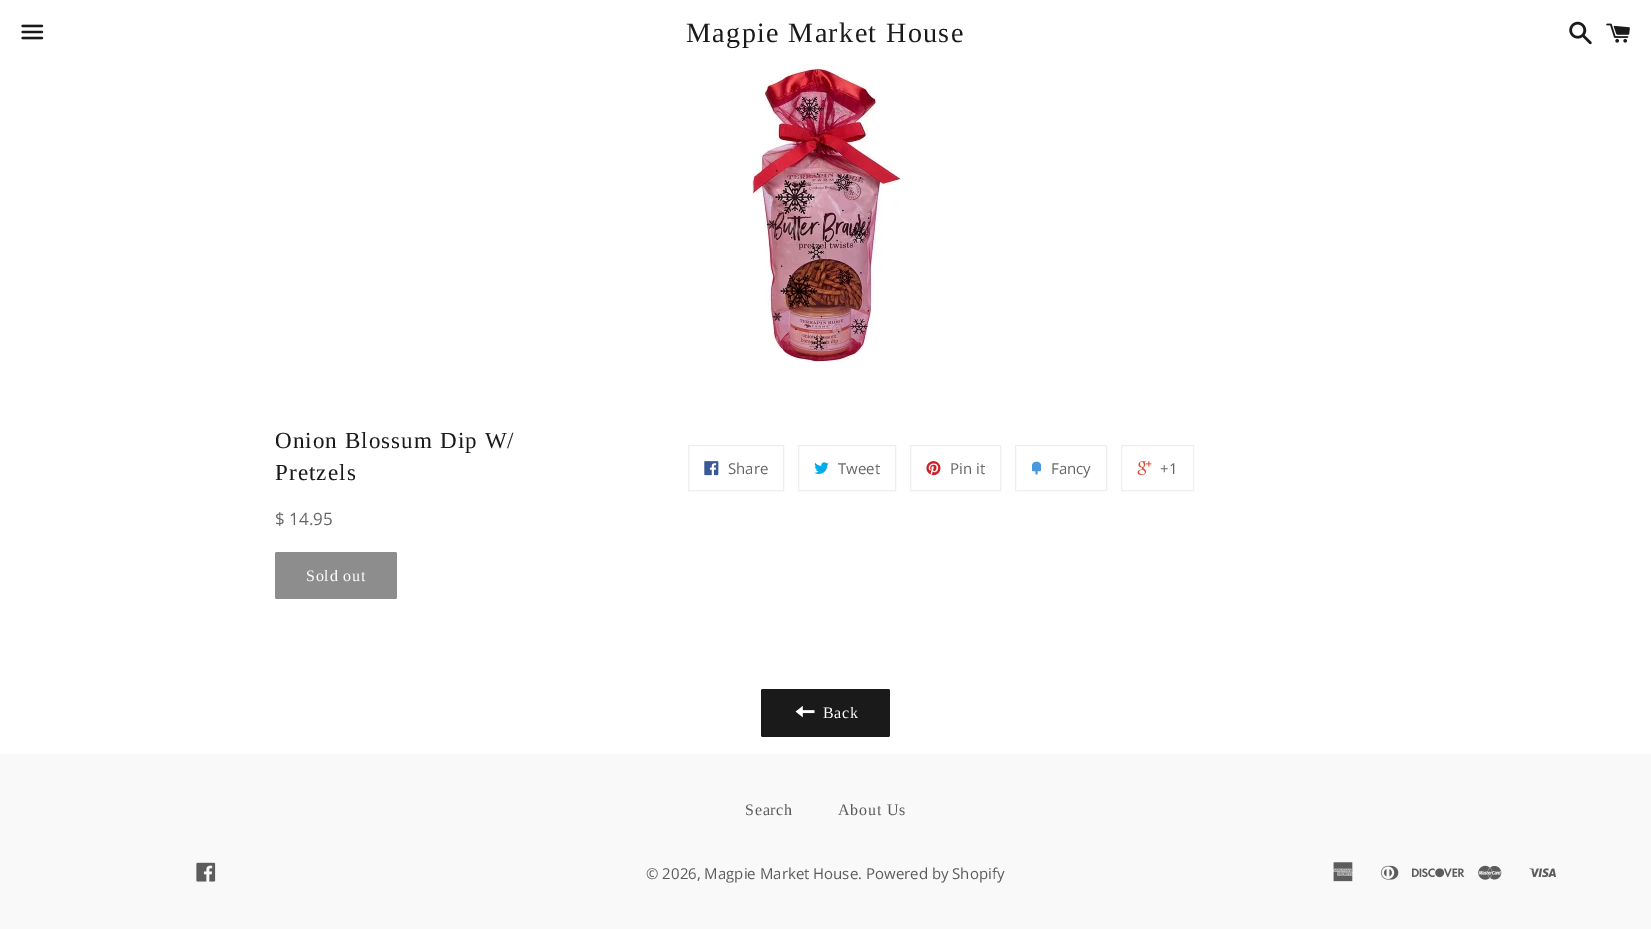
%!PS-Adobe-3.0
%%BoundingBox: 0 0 1651 929
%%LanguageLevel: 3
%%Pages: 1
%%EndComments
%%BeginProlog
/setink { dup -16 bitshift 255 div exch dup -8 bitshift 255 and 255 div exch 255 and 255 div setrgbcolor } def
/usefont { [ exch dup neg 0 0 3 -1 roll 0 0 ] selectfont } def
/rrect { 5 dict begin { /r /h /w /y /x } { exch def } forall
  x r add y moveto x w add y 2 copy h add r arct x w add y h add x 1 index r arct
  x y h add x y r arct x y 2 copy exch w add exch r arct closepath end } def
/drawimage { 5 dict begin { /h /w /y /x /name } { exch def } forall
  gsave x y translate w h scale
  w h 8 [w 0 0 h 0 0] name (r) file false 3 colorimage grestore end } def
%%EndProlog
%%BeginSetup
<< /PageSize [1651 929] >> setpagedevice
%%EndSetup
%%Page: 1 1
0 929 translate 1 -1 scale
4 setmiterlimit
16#FFFFFF setink
0 0 1651 929 rectfill
(img1.raw) 21 24 23 16 drawimage
/LiberationSerif-Regular 28 usefont
16#1A1A1A setink
686 42 moveto 1.4 0 (Magpie Market House) ashow
(img2.raw) 1569 21 23 24 drawimage
(img3.raw) 1606 23 24 20 drawimage
(img4.raw) 752 68 149 296 drawimage
/LiberationSerif-Regular 23 usefont
275 448 moveto 1.1 0 (Onion Blossum Dip W/) ashow
275 480 moveto 1.1 0 (Pretzels) ashow
/OpenSans-Regular 17 usefont
16#666666 setink
275 525 moveto ($ 14.95) show
16#8D8D8D setink
275 552 122 47 2 rrect fill
/LiberationSerif-Regular 16 usefont
16#FFFFFF setink
306 581 moveto 0.75 0 (Sold out) ashow
16#EEEEEE setink
688.5 445.5 95 45 rectstroke
(img5.raw) 704 461 15 15 drawimage
/OpenSans-Regular 15 usefont
16#666666 setink
728 474 moveto (Share) show
16#EEEEEE setink
798.5 445.5 97 45 rectstroke
(img6.raw) 814 462 15 12 drawimage
16#666666 setink
838 474 moveto (Tweet) show
16#EEEEEE setink
910.5 445.5 90 45 rectstroke
(img7.raw) 926 461 15 15 drawimage
16#666666 setink
950 474 moveto (Pin it) show
16#EEEEEE setink
1015.5 445.5 91 45 rectstroke
(img8.raw) 1032 461 10 14 drawimage
16#666666 setink
1051 474 moveto (Fancy) show
16#EEEEEE setink
1121.5 445.5 72 45 rectstroke
(img9.raw) 1137 461 15 15 drawimage
16#666666 setink
1160 474 moveto (+1) show
16#1A1A1A setink
761 689 129 48 2 rrect fill
(img10.raw) 795 705 20 13 drawimage
/LiberationSerif-Regular 16 usefont
16#FFFFFF setink
823 718 moveto 0.75 0 (Back) ashow
16#F9F9F9 setink
0 754 1651 175 rectfill
16#5C5C5C setink
745 815 moveto 0.75 0 (Search) ashow
838 815 moveto 0.75 0 (About Us) ashow
(img11.raw) 196 862 20 20 drawimage
/OpenSans-Regular 15 usefont
646 879 moveto (© 2026, Magpie Market House. Powered by Shopify) show
(img12.raw) 1333 862 20 20 drawimage
(img13.raw) 1381 865 18 15 drawimage
(img14.raw) 1412 868 53 10 drawimage
(img15.raw) 1478 865 24 15 drawimage
(img16.raw) 1529 868 27 10 drawimage
showpage
%%EOF
